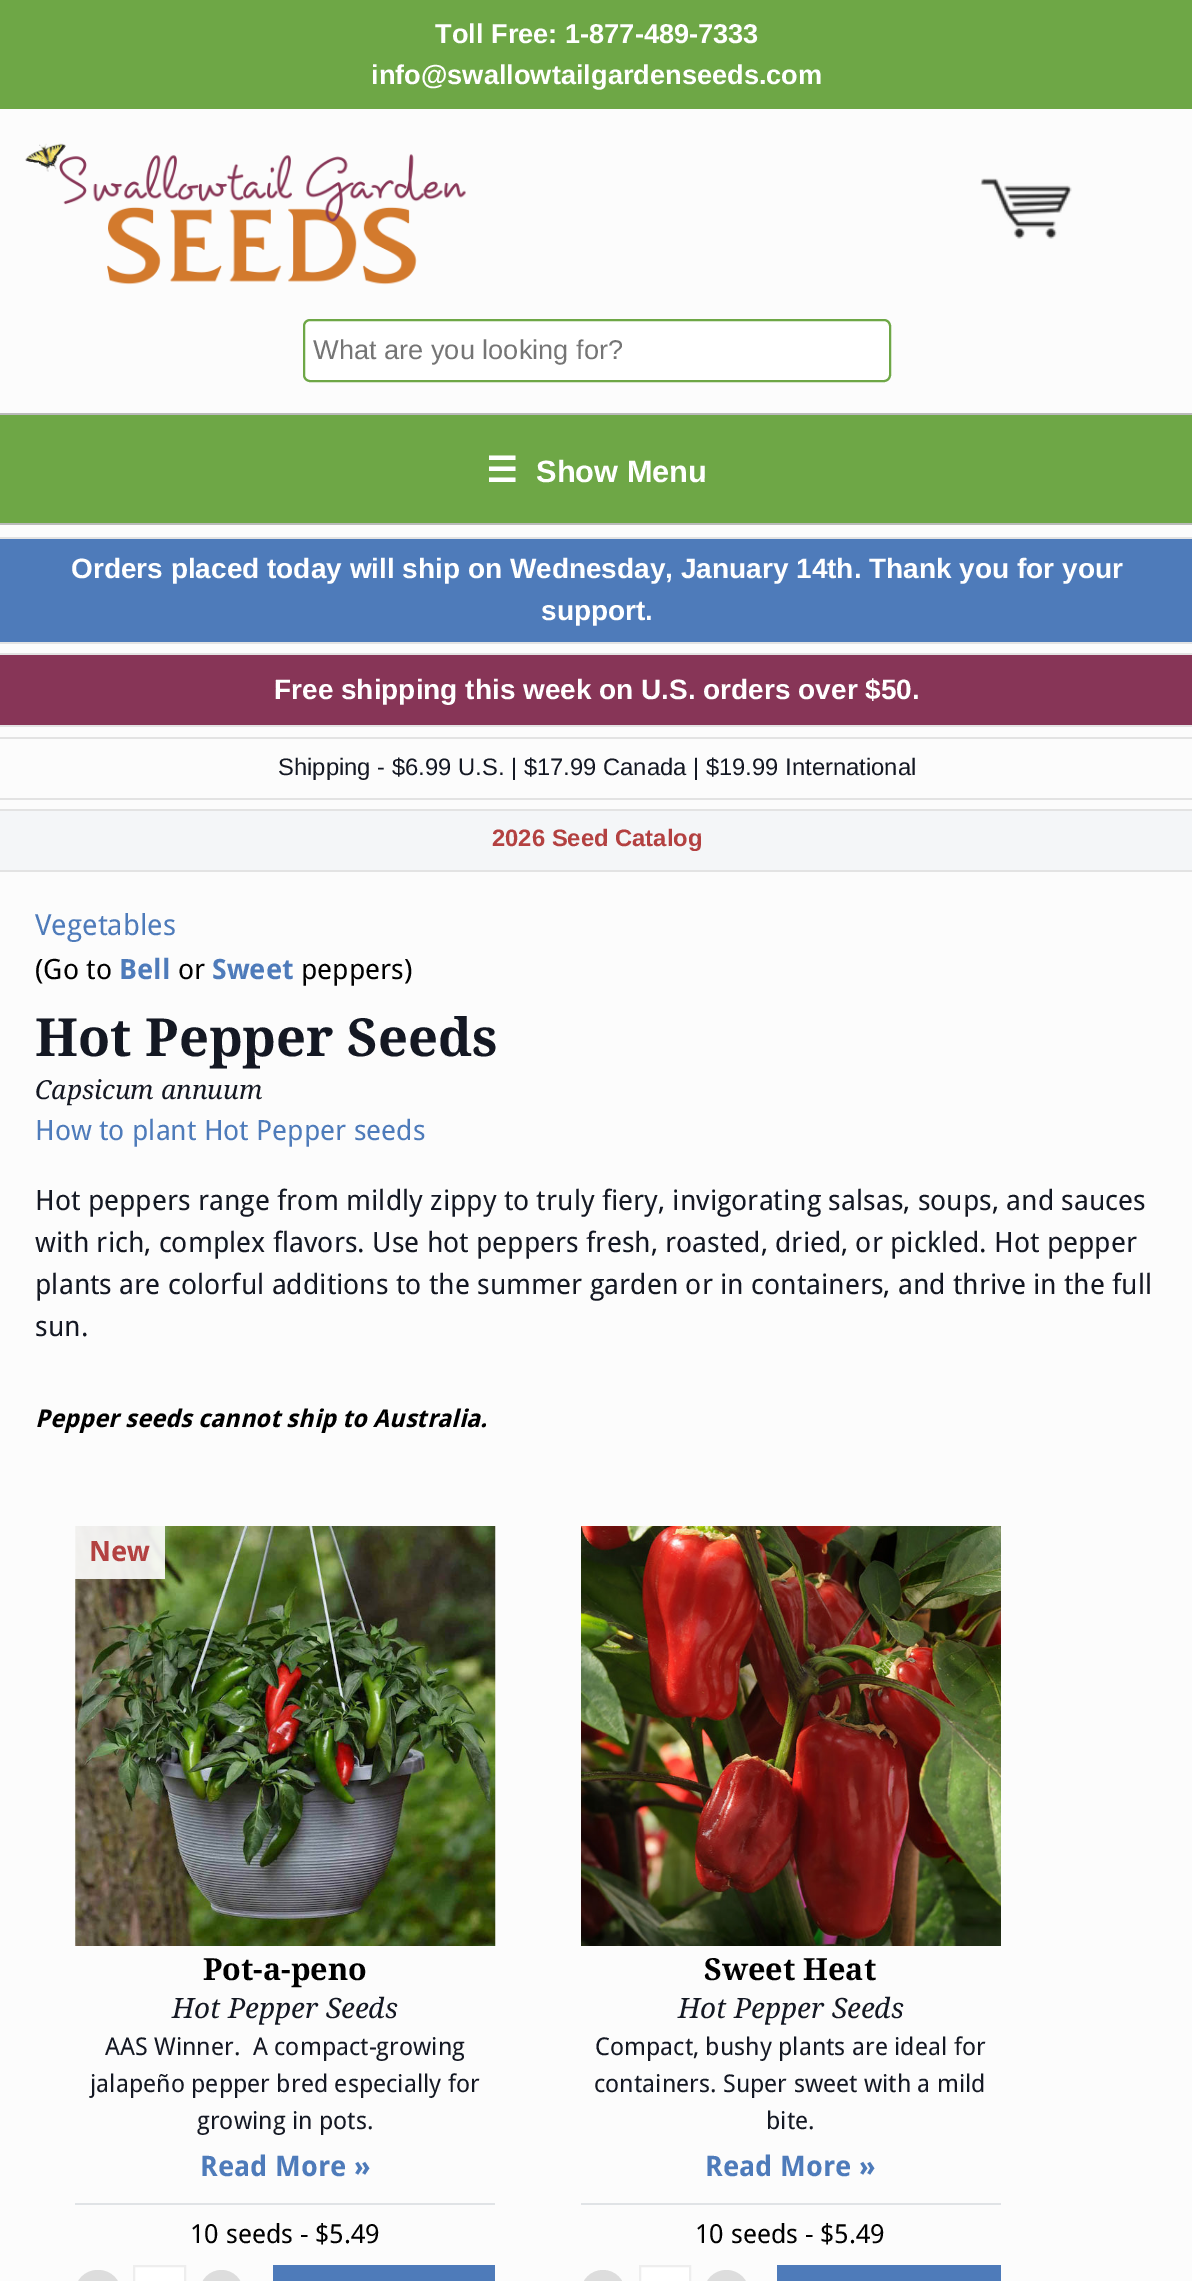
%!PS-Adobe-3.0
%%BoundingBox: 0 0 1192 2281
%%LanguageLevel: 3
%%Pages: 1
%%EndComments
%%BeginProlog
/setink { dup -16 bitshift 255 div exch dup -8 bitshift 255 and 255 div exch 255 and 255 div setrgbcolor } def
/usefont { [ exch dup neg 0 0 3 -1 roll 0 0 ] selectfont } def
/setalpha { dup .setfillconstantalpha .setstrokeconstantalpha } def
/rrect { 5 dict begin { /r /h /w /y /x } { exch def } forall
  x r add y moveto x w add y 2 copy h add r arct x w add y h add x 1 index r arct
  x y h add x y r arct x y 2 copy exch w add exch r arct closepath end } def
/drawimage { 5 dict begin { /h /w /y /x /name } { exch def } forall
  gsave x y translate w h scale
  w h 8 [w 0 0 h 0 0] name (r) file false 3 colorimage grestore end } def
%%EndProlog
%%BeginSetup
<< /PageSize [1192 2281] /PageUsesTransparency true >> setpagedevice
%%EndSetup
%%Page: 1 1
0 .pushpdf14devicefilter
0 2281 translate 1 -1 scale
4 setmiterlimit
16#FCFCFC setink
0 0 1192 2281 rectfill
16#6EA746 setink
0 0 1192 109 rectfill
/LiberationSans-Bold 27.2 usefont
16#FFFFFF setink
435 43 moveto (Toll Free: 1-877-489-7333) show
371 84 moveto (info@swallowtailgardenseeds.com) show
(img1.raw) 25 143 441 142 drawimage
(img2.raw) 980 178 92 61 drawimage
304 320 586 61 6 rrect gsave fill grestore
16#6EA746 setink
2 setlinewidth
stroke
/LiberationSans-Regular 27.2 usefont
16#757575 setink
313 359 moveto (What are you looking for?) show
[
    [0 413 1192 2 16#BABABA]
    [0 415 1192 108 16#6EA746]
    [0 523 1192 2 16#BABABA]
] { aload pop setink rectfill } forall
/DejaVuSans-Bold 35 usefont
16#FFFFFF setink
486 482 moveto (☰) show
/LiberationSans-Bold 30.75 usefont
536 482 moveto (Show Menu) show
[
    [0 539 1192 103 16#4E7BBA]
    [0 537 1192 2 16#E3E3E3]
    [0 642 1192 2 16#E3E3E3]
] { aload pop setink rectfill } forall
/LiberationSans-Bold 28 usefont
16#FFFFFF setink
71 578 moveto (Orders placed today will ship on Wednesday, January 14th. Thank you for your) show
541 620 moveto (support.) show
[
    [0 655 1192 70 16#873557]
    [0 653 1192 2 16#E3E3E3]
    [0 725 1192 2 16#E3E3E3]
] { aload pop setink rectfill } forall
16#FFFFFF setink
274 699 moveto (Free shipping this week on U.S. orders over $50.) show
16#E3E3E3 setink
0 737 1192 2 rectfill
0 798 1192 2 rectfill
/LiberationSans-Regular 23.8 usefont
16#141823 setink
278 775 moveto (Shipping - $6.99 U.S. | $17.99 Canada | $19.99 International) show
[
    [0 811 1192 59 16#F4F6F8]
    [0 809 1192 2 16#E3E3E3]
    [0 870 1192 2 16#E3E3E3]
] { aload pop setink rectfill } forall
/LiberationSans-Bold 23.8 usefont
16#B34141 setink
492 846 moveto (2026 Seed Catalog) show
/DroidSans-Regular 29 usefont
16#4E7BBA setink
35 935 moveto (Vegetables) show
/DroidSans-Regular 28 usefont
16#000000 setink
35 979 moveto (\(Go to) show
/DroidSans-Bold 28 usefont
16#4E7BBA setink
119 979 moveto (Bell) show
/DroidSans-Regular 28 usefont
16#000000 setink
178 979 moveto (or) show
/DroidSans-Bold 28 usefont
16#4E7BBA setink
212 979 moveto (Sweet) show
/DroidSans-Regular 28 usefont
16#000000 setink
301 979 moveto (peppers\)) show
/DroidSerif-Bold 52.5 usefont
16#141823 setink
35 1056 moveto (Hot Pepper Seeds) show
/DroidSerif-Italic 26.25 usefont
35 1099 moveto (Capsicum annuum) show
/DroidSans-Regular 28 usefont
16#4E7BBA setink
35 1140 moveto (How to plant Hot Pepper seeds) show
16#141823 setink
[
    [(Hot peppers range from mildly zippy to truly fiery, invigorating salsas, soups, and sauces) 35 1210]
    [(with rich, complex flavors. Use hot peppers fresh, roasted, dried, or pickled. Hot pepper) 35 1252]
    [(plants are colorful additions to the summer garden or in containers, and thrive in the full) 35 1294]
    [(sun.) 35 1336]
] { aload pop moveto show } forall
/DroidSans-BoldItalic 24.5 usefont
16#000000 setink
35 1427 moveto (Pepper seeds cannot ship to Australia.) show
(img3.raw) 75 1526 421 420 drawimage
0.9 setalpha
16#FFFFFF setink
75 1526 90 53 rectfill
/DroidSans-Bold 28 usefont
1 setalpha
16#B34141 setink
89 1561 moveto (New) show
/DroidSerif-Bold 30.5 usefont
16#000000 setink
203 1980 moveto (Pot-a-peno) show
/DroidSerif-Italic 28 usefont
16#141823 setink
172 2018 moveto (Hot Pepper Seeds) show
/DroidSans-Regular 24.5 usefont
[
    [(AAS Winner.  A compact-growing) 105 2055]
    [(jalapeño pepper bred especially for) 90 2092]
    [(growing in pots.) 197 2129]
] { aload pop moveto show } forall
/DroidSans-Bold 28.25 usefont
16#4E7BBA setink
200 2176 moveto (Read More ») show
16#E0E3E6 setink
75 2203 420 2 rectfill
/DroidSans-Regular 26.25 usefont
16#000000 setink
190 2243 moveto (10 seeds - $5.49) show
16#DDDDDD setink
75 2270 46 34 22.5 rrect fill
16#FFFFFF setink
134 2266 moveto 185 2266 lineto 185 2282 lineto 134 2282 lineto closepath gsave fill grestore
16#EEEEEE setink
stroke
16#DDDDDD setink
200 2270 43 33 21.5 rrect fill
16#4E7BBA setink
273 2265 222 16 rectfill
(img4.raw) 581 1526 420 420 drawimage
/DroidSerif-Bold 30.5 usefont
16#000000 setink
704 1980 moveto (Sweet Heat) show
/DroidSerif-Italic 28 usefont
16#141823 setink
678 2018 moveto (Hot Pepper Seeds) show
/DroidSans-Regular 24.5 usefont
[
    [(Compact, bushy plants are ideal for) 595 2055]
    [(containers. Super sweet with a mild) 594 2092]
    [(bite.) 766 2129]
] { aload pop moveto show } forall
/DroidSans-Bold 28.25 usefont
16#4E7BBA setink
705 2176 moveto (Read More ») show
16#E0E3E6 setink
581 2203 420 2 rectfill
/DroidSans-Regular 26.25 usefont
16#000000 setink
695 2243 moveto (10 seeds - $5.49) show
16#DDDDDD setink
581 2270 44 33 22 rrect fill
16#FFFFFF setink
640 2266 moveto 690 2266 lineto 690 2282 lineto 640 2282 lineto closepath gsave fill grestore
16#EEEEEE setink
stroke
16#DDDDDD setink
704 2270 45 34 22.5 rrect fill
16#4E7BBA setink
777 2265 224 16 rectfill
.poppdf14devicefilter showpage
%%EOF
